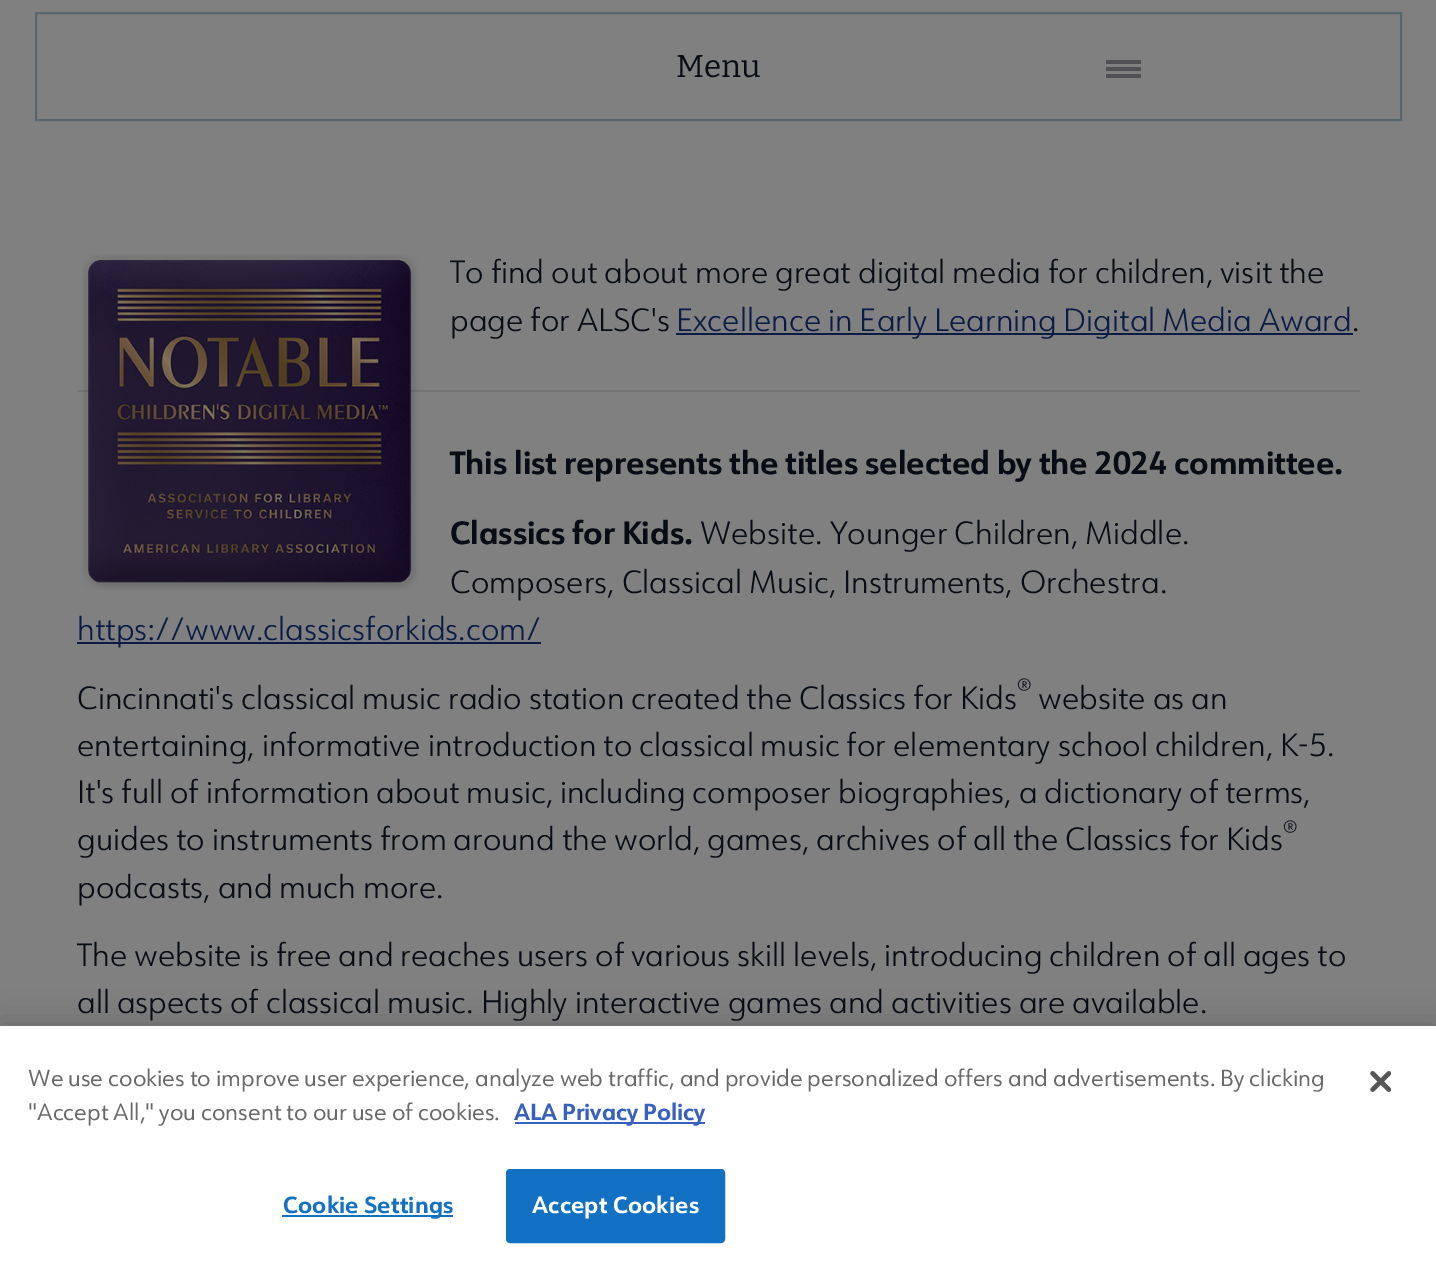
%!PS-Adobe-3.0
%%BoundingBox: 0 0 1436 1269
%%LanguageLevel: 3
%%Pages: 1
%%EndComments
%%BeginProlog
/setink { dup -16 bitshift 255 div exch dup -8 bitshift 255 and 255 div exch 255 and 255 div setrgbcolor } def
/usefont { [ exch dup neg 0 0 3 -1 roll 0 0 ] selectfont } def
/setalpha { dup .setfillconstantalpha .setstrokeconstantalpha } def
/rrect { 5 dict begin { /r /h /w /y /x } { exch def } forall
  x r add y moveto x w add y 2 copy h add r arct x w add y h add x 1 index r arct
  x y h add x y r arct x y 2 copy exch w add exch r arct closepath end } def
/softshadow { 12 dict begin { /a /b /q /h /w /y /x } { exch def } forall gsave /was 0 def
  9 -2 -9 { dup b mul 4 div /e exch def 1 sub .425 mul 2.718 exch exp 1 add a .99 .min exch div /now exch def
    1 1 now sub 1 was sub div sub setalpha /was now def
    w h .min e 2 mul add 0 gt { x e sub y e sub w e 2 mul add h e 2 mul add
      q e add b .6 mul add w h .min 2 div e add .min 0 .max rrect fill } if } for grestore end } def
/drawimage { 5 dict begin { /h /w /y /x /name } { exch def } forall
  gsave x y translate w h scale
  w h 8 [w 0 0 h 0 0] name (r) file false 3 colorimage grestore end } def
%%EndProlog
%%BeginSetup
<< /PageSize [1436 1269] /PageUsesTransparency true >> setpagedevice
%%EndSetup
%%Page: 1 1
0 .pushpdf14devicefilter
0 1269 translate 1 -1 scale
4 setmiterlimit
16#808080 setink
0 0 1436 1269 rectfill
16#57676D setink
2 setlinewidth
36 13 1365 107 rectstroke
/Bitter-Regular 31.5 usefont
16#080C14 setink
676 77 moveto (Menu) show
[
    [1106 60 35 4 16#505055]
    [1106 67 35 4 16#505055]
    [1106 74 35 4 16#505055]
    [77 390 1283 2 16#737476]
] { aload pop setink rectfill } forall
(img1.raw) 82 254 337 336 drawimage
/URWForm-Light 31.5 usefont
16#080C14 setink
450 283 moveto (To find out about more great digital media for children, visit the) show
450 331 moveto (page for ALSC's) show
16#0A1B44 setink
676 333 677 2 rectfill
676 331 moveto (Excellence in Early Learning Digital Media Award) show
16#080C14 setink
1352 331 moveto (.) show
/URWForm-Bold 31.5 usefont
450 474 moveto (This list represents the titles selected by the 2024 committee.) show
450 544 moveto (Classics for Kids.) show
/URWForm-Light 31.5 usefont
700 544 moveto (Website. Younger Children, Middle.) show
450 593 moveto (Composers, Classical Music, Instruments, Orchestra.) show
16#0A1B44 setink
77 642 464 2 rectfill
77 640 moveto (https://www.classicsforkids.com/) show
16#080C14 setink
77 709 moveto (Cincinnati's classical music radio station created the Classics for Kids) show
/URWForm-Light 24 usefont
1017 697 moveto (®) show
/URWForm-Light 31.5 usefont
[
    [(website as an) 1038 709]
    [(entertaining, informative introduction to classical music for elementary school children, K-5.) 77 756]
    [(It's full of information about music, including composer biographies, a dictionary of terms,) 77 803]
    [(guides to instruments from around the world, games, archives of all the Classics for Kids) 77 850]
] { aload pop moveto show } forall
/URWForm-Light 24 usefont
1283 839 moveto (®) show
/URWForm-Light 31.5 usefont
[
    [(podcasts, and much more.) 77 898]
    [(The website is free and reaches users of various skill levels, introducing children of all ages to) 77 966]
    [(all aspects of classical music. Highly interactive games and activities are available.) 77 1013]
] { aload pop moveto show } forall
16#000000 setink
0 1026 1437 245 0 16 0.2 softshadow
16#FFFFFF setink
0 1026 1436 243 rectfill
/URWForm-Regular 22.75 usefont
16#696969 setink
28 1086 moveto (We use cookies to improve user experience, analyze web traffic, and provide personalized offers and advertisements. By clicking) show
28 1120 moveto ("Accept All," you consent to our use of cookies.) show
16#3860BE setink
515 1122 190 2 rectfill
/URWForm-Bold 22.75 usefont
514 1120 moveto (ALA Privacy Policy) show
16#1371C3 setink
282 1215 171 2 rectfill
283 1213 moveto 0.25 0 (Cookie Settings) ashow
507 1170 217 72 3 rrect gsave fill grestore
stroke
16#FFFFFF setink
532 1213 moveto 0.25 0 (Accept Cookies) ashow
(img2.raw) 1370 1071 21 21 drawimage
.poppdf14devicefilter showpage
%%EOF
